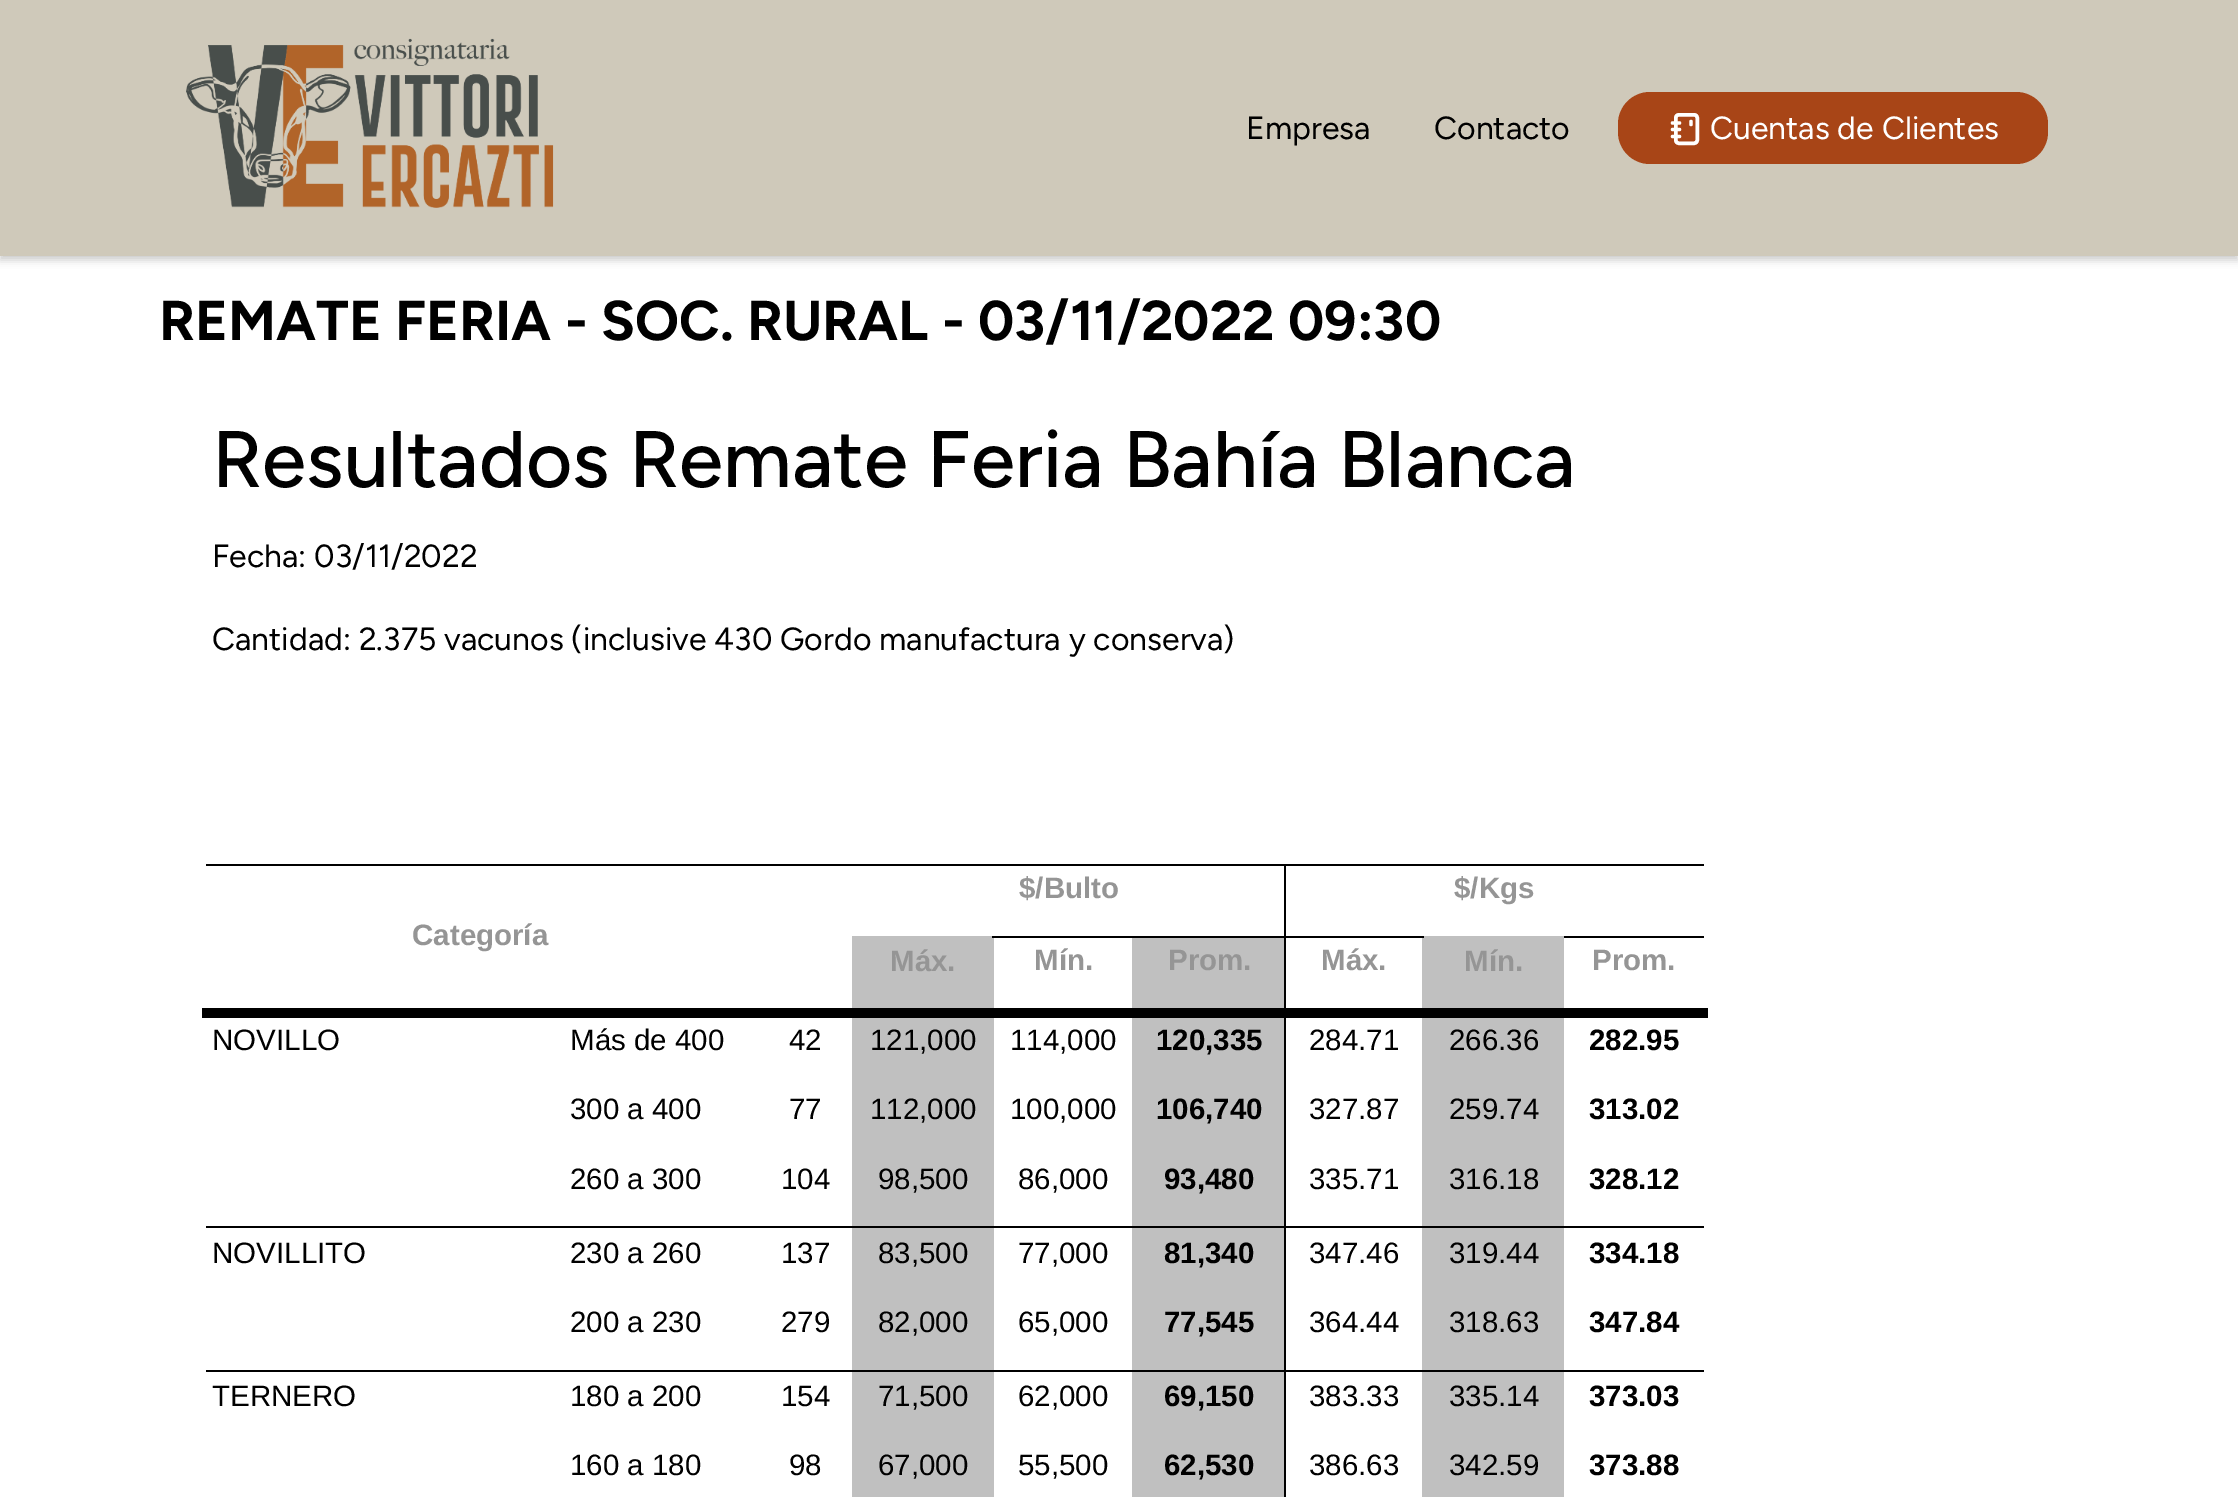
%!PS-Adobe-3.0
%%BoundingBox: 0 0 2238 1497
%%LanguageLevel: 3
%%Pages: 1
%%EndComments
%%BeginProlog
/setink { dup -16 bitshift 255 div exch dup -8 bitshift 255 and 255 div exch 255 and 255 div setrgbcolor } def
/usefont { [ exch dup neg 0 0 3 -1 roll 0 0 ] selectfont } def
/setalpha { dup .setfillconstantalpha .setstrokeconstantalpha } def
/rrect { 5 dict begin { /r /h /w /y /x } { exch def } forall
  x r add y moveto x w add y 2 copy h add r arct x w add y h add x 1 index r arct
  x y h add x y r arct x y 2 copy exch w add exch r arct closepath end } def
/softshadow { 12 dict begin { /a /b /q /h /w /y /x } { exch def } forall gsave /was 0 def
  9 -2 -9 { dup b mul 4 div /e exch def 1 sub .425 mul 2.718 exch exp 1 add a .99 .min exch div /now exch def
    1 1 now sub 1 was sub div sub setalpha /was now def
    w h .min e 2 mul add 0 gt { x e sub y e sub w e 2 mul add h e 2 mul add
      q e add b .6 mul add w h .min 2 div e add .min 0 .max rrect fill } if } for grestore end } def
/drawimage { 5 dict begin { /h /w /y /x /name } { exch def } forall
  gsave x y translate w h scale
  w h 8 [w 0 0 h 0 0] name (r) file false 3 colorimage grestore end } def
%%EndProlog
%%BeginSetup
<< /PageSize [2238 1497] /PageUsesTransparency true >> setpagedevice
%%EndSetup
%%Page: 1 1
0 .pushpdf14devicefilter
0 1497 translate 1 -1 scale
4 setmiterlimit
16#FFFFFF setink
0 0 2238 1497 rectfill
16#000000 setink
0 4 2238 256 0 4 0.2 softshadow
16#CFC9BA setink
0 0 2238 256 rectfill
(img1.raw) 186 38 368 170 drawimage
/Figtree-Regular 32 usefont
16#000000 setink
1246 139 moveto (Empresa) show
1434 139 moveto (Contacto) show
16#A84517 setink
1618 92 430 72 32 rrect fill
16#FFFFFF setink
3.5 setlinewidth
1675.75 114.75 21.5 28.5 3.25 rrect stroke
3.3 setlinewidth
1 setlinecap
1691 124.5 moveto 1691 121.5 lineto 1672.5 123 moveto 1679.5 123 lineto 1672.5 129.5 moveto 1679.5 129.5 lineto 1672.5 136.5 moveto 1679.5 136.5 lineto stroke
1710 139 moveto (Cuentas de Clientes) show
/Figtree-Bold 56 usefont
16#000000 setink
159 340 moveto (REMATE FERIA - SOC. RURAL - 03/11/2022 09:30) show
/Figtree-Medium 80 usefont
212 487 moveto (Resultados Remate Feria Bahía Blanca) show
/Figtree-Regular 32 usefont
212 567 moveto (Fecha: 03/11/2022) show
212 650 moveto (Cantidad: 2.375 vacunos \(inclusive 430 Gordo manufactura y conserva\)) show
[
    [1284 864 420 2 16#000000]
    [852 936 142 72 16#C0C0C0]
    [1422 936 142 72 16#C0C0C0]
    [1284 936 140 2 16#000000]
    [1284 1226 420 2 16#000000]
    [1284 1370 420 2 16#000000]
    [1284 1444 2 53 16#000000]
    [1284 1370 2 76 16#000000]
    [206 1370 1080 2 16#000000]
    [1284 1300 2 72 16#000000]
    [1284 1226 2 76 16#000000]
    [206 1226 1080 2 16#000000]
    [1284 1012 2 216 16#000000]
    [1284 936 2 78 16#000000]
    [992 936 294 2 16#000000]
    [1284 864 2 74 16#000000]
    [206 864 1080 2 16#000000]
] { aload pop setink rectfill } forall
/LiberationSans-Bold 29.5 usefont
16#959595 setink
[
    [($/Bulto) 1019 898]
    [($/Kgs) 1454 898]
    [(Categoría) 412 945]
    [(Máx.) 890 971]
    [(Mín.) 1034 970]
] { aload pop moveto show } forall
16#C0C0C0 setink
1132 938 152 70 rectfill
16#959595 setink
[
    [(Prom.) 1168 970]
    [(Máx.) 1321 970]
    [(Mín.) 1464 971]
] { aload pop moveto show } forall
16#000000 setink
1564 936 140 2 rectfill
16#959595 setink
1592 970 moveto (Prom.) show
/LiberationSans-Regular 29.5 usefont
16#000000 setink
[
    [(NOVILLO) 212 1050]
    [(Más de 400) 570 1050]
    [(42) 789 1050]
] { aload pop moveto show } forall
16#C0C0C0 setink
852 1018 142 208 rectfill
16#000000 setink
870 1050 moveto (121,000) show
1010 1050 moveto (114,000) show
16#C0C0C0 setink
1132 1018 152 208 rectfill
/LiberationSans-Bold 29.5 usefont
16#000000 setink
1156 1050 moveto (120,335) show
/LiberationSans-Regular 29.5 usefont
1309 1050 moveto (284.71) show
16#C0C0C0 setink
1422 1018 142 208 rectfill
16#000000 setink
1449 1050 moveto (266.36) show
202 1008 1506 10 rectfill
/LiberationSans-Bold 29.5 usefont
1589 1050 moveto (282.95) show
/LiberationSans-Regular 29.5 usefont
[
    [(300 a 400) 570 1119]
    [(77) 789 1119]
    [(112,000) 870 1119]
    [(100,000) 1010 1119]
] { aload pop moveto show } forall
/LiberationSans-Bold 29.5 usefont
1156 1119 moveto (106,740) show
/LiberationSans-Regular 29.5 usefont
1309 1119 moveto (327.87) show
1449 1119 moveto (259.74) show
/LiberationSans-Bold 29.5 usefont
1589 1119 moveto (313.02) show
/LiberationSans-Regular 29.5 usefont
[
    [(260 a 300) 570 1189]
    [(104) 781 1189]
    [(98,500) 878 1189]
    [(86,000) 1018 1189]
] { aload pop moveto show } forall
/LiberationSans-Bold 29.5 usefont
1164 1189 moveto (93,480) show
/LiberationSans-Regular 29.5 usefont
1309 1189 moveto (335.71) show
1449 1189 moveto (316.18) show
/LiberationSans-Bold 29.5 usefont
1589 1189 moveto (328.12) show
/LiberationSans-Regular 29.5 usefont
[
    [(NOVILLITO) 212 1263]
    [(230 a 260) 570 1263]
    [(137) 781 1263]
] { aload pop moveto show } forall
16#C0C0C0 setink
852 1228 142 142 rectfill
16#000000 setink
878 1263 moveto (83,500) show
1018 1263 moveto (77,000) show
16#C0C0C0 setink
1132 1228 152 142 rectfill
/LiberationSans-Bold 29.5 usefont
16#000000 setink
1164 1263 moveto (81,340) show
/LiberationSans-Regular 29.5 usefont
1309 1263 moveto (347.46) show
16#C0C0C0 setink
1422 1228 142 142 rectfill
16#000000 setink
1449 1263 moveto (319.44) show
/LiberationSans-Bold 29.5 usefont
1589 1263 moveto (334.18) show
/LiberationSans-Regular 29.5 usefont
[
    [(200 a 230) 570 1332]
    [(279) 781 1332]
    [(82,000) 878 1332]
    [(65,000) 1018 1332]
] { aload pop moveto show } forall
/LiberationSans-Bold 29.5 usefont
1164 1332 moveto (77,545) show
/LiberationSans-Regular 29.5 usefont
1309 1332 moveto (364.44) show
1449 1332 moveto (318.63) show
/LiberationSans-Bold 29.5 usefont
1589 1332 moveto (347.84) show
/LiberationSans-Regular 29.5 usefont
[
    [(TERNERO) 212 1406]
    [(180 a 200) 570 1406]
    [(154) 781 1406]
] { aload pop moveto show } forall
16#C0C0C0 setink
852 1372 142 125 rectfill
16#000000 setink
878 1406 moveto (71,500) show
1018 1406 moveto (62,000) show
16#C0C0C0 setink
1132 1372 152 125 rectfill
/LiberationSans-Bold 29.5 usefont
16#000000 setink
1164 1406 moveto (69,150) show
/LiberationSans-Regular 29.5 usefont
1309 1406 moveto (383.33) show
16#C0C0C0 setink
1422 1372 142 125 rectfill
16#000000 setink
1449 1406 moveto (335.14) show
/LiberationSans-Bold 29.5 usefont
1589 1406 moveto (373.03) show
/LiberationSans-Regular 29.5 usefont
[
    [(160 a 180) 570 1475]
    [(98) 789 1475]
    [(67,000) 878 1475]
    [(55,500) 1018 1475]
] { aload pop moveto show } forall
/LiberationSans-Bold 29.5 usefont
1164 1475 moveto (62,530) show
/LiberationSans-Regular 29.5 usefont
1309 1475 moveto (386.63) show
1449 1475 moveto (342.59) show
/LiberationSans-Bold 29.5 usefont
1589 1475 moveto (373.88) show
.poppdf14devicefilter showpage
%%EOF
